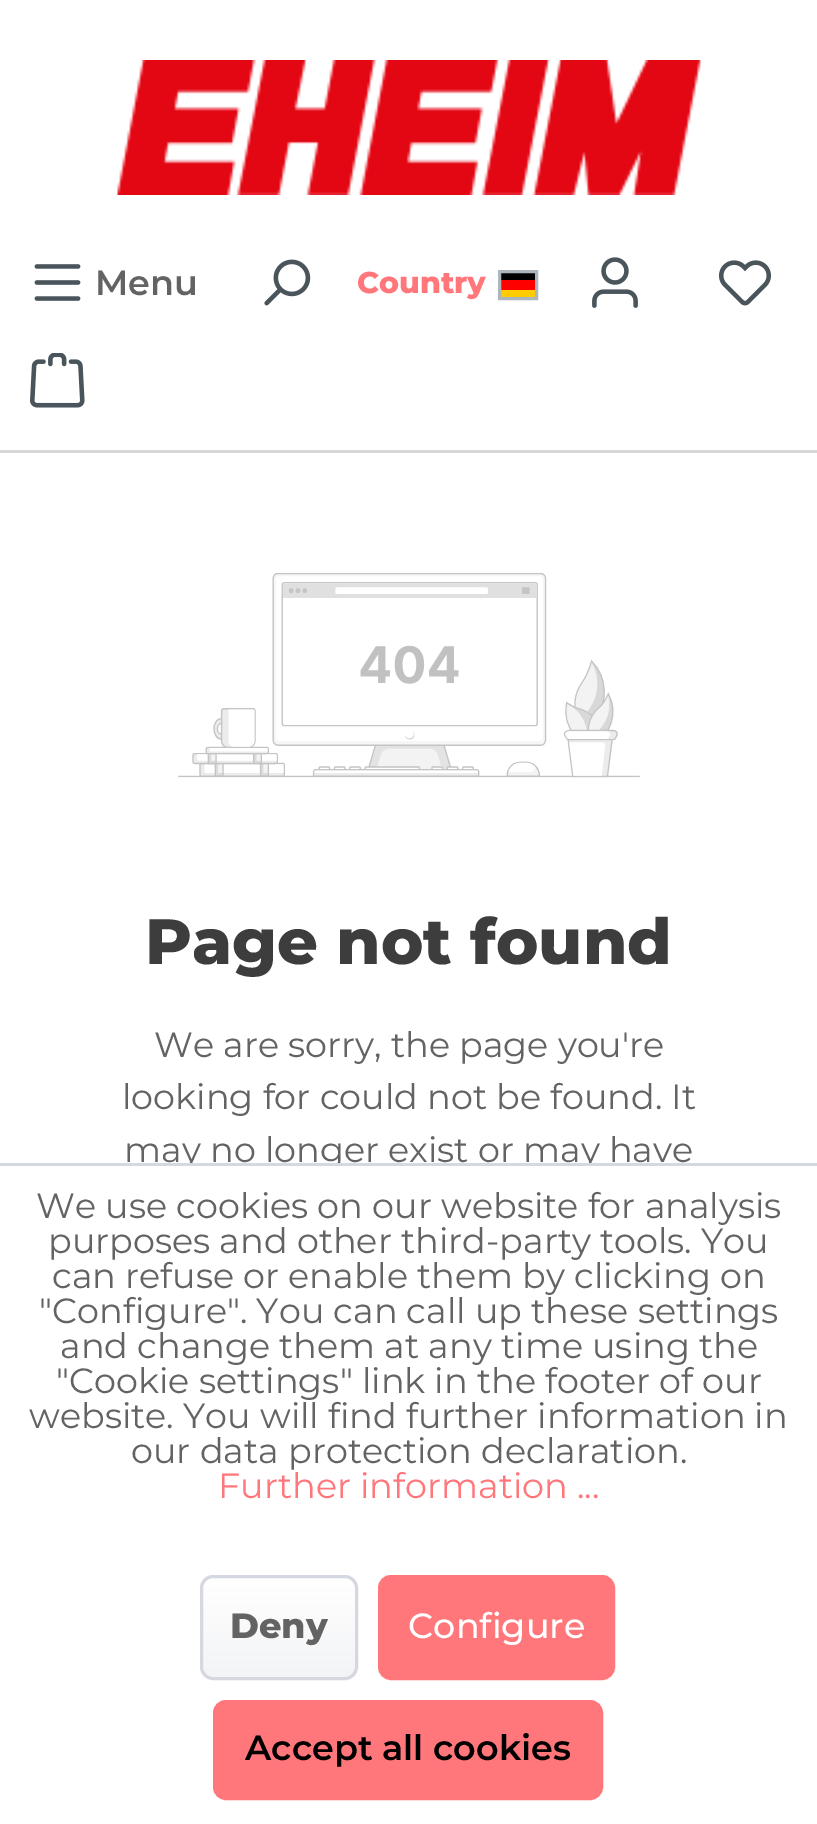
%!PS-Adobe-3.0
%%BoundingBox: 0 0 817 1824
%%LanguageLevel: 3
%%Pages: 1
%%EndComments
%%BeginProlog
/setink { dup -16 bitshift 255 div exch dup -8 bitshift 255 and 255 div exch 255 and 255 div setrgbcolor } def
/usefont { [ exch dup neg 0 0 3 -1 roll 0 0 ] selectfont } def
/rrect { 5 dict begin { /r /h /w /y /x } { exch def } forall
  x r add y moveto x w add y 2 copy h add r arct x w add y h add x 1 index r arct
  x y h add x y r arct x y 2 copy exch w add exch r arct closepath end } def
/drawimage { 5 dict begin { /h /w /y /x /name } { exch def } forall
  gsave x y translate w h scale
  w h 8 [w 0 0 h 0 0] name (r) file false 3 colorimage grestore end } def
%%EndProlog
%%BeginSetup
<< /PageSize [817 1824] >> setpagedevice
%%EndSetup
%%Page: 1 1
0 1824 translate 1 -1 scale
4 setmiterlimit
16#FFFFFF setink
0 0 817 1824 rectfill
16#D6D6D6 setink
0 450 817 3 rectfill
(img1.raw) 117 60 584 135 drawimage
(img2.raw) 34 264 47 37 drawimage
/Montserrat-SemiBold 35 usefont
16#626362 setink
95 295 moveto (Menu) show
(img3.raw) 264 259 47 47 drawimage
/Montserrat-ExtraBold 30 usefont
16#FF767B setink
357 293 moveto (Country) show
[
    [500 273 35 7 16#000000]
    [501 280 34 10 16#FF0000]
    [500 290 35 7 16#FFCC00]
] { aload pop setink rectfill } forall
16#ADB5BD setink
3 setlinewidth
499.5 271.5 37 27 rectstroke
(img4.raw) 592 257 46 51 drawimage
(img5.raw) 718 260 54 46 drawimage
(img6.raw) 30 353 55 55 drawimage
(img7.raw) 178 573 462 205 drawimage
/Montserrat-ExtraBold 63.75 usefont
16#3C3D3C setink
145 964 moveto (Page not found) show
/Montserrat-Regular 35 usefont
16#626362 setink
[
    [(We are sorry, the page you're) 154 1057]
    [(looking for could not be found. It) 122 1109]
    [(may no longer exist or may have) 124 1162]
] { aload pop moveto show } forall
16#FFFFFF setink
181 1166 409 3 rectfill
16#D6D8E1 setink
0 1163 817 3 rectfill
16#626362 setink
[
    [(We use cookies on our website for analysis) 36 1218]
    [(purposes and other third-party tools. You) 48 1253]
    [(can refuse or enable them by clicking on) 52 1288]
    [("Configure". You can call up these settings) 39 1323]
    [(and change them at any time using the) 60 1358]
    [("Cookie settings" link in the footer of our) 56 1393]
    [(website. You will find further information in) 29 1428]
    [(our data protection declaration.) 131 1463]
] { aload pop moveto show } forall
16#FF767B setink
218 1498 moveto (Further information ...) show
gsave 203 1578 152 100 10 rrect clip newpath
<< /ShadingType 2 /ColorSpace /DeviceRGB /Coords [279 1578 279 1678] /Extend [true true] /Function << /FunctionType 2 /Domain [0 1] /C0 [1 1 1] /C1 [0.953 0.957 0.965] /N 1 >> >> shfill grestore
16#D6D8E1 setink
201.5 1576.5 155 102 11.5 rrect stroke
/Montserrat-ExtraBold 35 usefont
16#626362 setink
230 1638 moveto (Deny) show
16#FF767B setink
379.5 1576.5 234 102 11.5 rrect gsave fill grestore
stroke
/Montserrat-Medium 35 usefont
16#FFFFFF setink
408 1638 moveto (Configure) show
16#FF767B setink
214.5 1701.5 387 97 11.5 rrect gsave fill grestore
stroke
/Montserrat-SemiBold 35 usefont
16#000000 setink
245 1760 moveto (Accept all cookies) show
showpage
%%EOF
